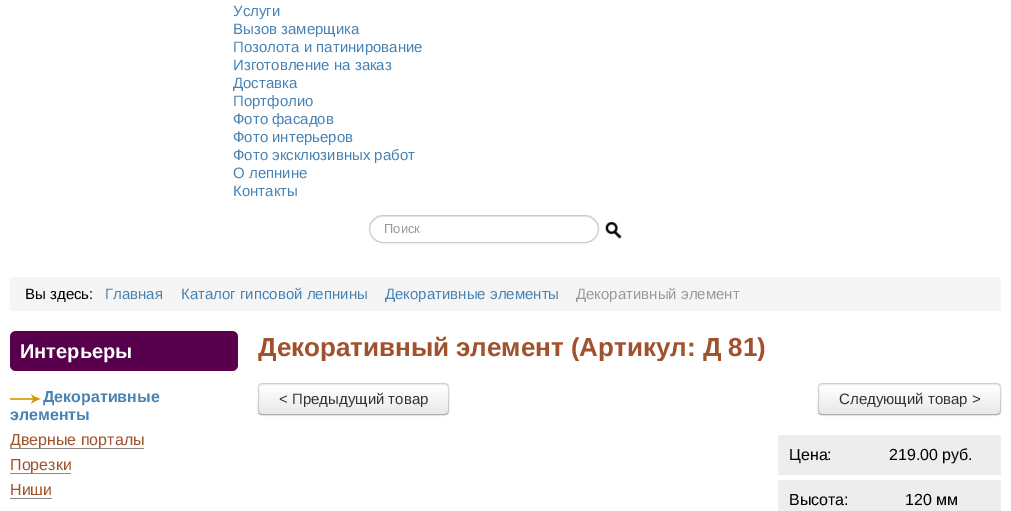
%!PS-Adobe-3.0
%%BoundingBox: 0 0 1011 511
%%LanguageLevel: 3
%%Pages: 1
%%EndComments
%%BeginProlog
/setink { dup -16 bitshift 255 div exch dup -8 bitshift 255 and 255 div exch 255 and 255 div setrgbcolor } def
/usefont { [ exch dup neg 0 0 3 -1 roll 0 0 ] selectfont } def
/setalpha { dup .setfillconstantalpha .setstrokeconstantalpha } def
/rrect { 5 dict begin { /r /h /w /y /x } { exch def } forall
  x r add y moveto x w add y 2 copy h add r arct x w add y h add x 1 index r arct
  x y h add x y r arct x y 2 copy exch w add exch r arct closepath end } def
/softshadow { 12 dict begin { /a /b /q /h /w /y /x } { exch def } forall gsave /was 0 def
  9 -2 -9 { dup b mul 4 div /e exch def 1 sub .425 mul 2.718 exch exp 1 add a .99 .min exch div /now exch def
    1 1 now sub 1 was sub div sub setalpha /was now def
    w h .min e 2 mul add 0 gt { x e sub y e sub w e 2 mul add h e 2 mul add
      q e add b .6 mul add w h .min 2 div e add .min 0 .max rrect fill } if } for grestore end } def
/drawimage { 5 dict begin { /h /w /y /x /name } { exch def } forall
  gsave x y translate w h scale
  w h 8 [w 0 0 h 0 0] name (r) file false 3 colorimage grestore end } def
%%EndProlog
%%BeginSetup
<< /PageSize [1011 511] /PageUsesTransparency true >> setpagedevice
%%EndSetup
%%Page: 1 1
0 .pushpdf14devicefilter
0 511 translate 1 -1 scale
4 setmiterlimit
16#FFFFFF setink
0 0 1011 511 rectfill
/LiberationSans-Regular 15 usefont
16#4682B4 setink
[
    [(Услуги) 233 16]
    [(Вызов замерщика) 233 34]
    [(Позолота и патинирование) 233 52]
    [(Изготовление на заказ) 233 70]
    [(Доставка) 233 88]
    [(Портфолио) 233 106]
    [(Фото фасадов) 233 124]
    [(Фото интерьеров) 233 142]
    [(Фото эксклюзивных работ) 233 160]
    [(О лепнине) 233 178]
    [(Контакты) 233 196]
] { aload pop moveto show } forall
16#ECECEC setink
383 217 moveto 585 217 lineto 592 217 598 223 598 230 curveto 598 222 592 216 585 216 curveto 383 216 lineto 376 216 370 222 370 230 curveto 370 223 376 217 383 217 curveto closepath fill
16#CCCCCC setink
369.5 215.5 229 27 13.5 rrect stroke
/LiberationSans-Regular 13 usefont
16#999999 setink
384 233 moveto (Поиск) show
(img1.raw) 605 222 17 17 drawimage
16#F5F5F5 setink
10 277 991 34 4 rrect fill
/LiberationSans-Regular 15 usefont
16#000000 setink
25 299 moveto (Вы здесь:) show
16#4682B4 setink
[
    [(Главная) 105 299]
    [(Каталог гипсовой лепнины) 181 299]
    [(Декоративные элементы) 385 299]
] { aload pop moveto show } forall
16#999999 setink
576 299 moveto (Декоративный элемент) show
16#59004D setink
10 331 228 40 6 rrect fill
/LiberationSans-Bold 20 usefont
16#FFFFFF setink
20 358 moveto (Интерьеры) show
(img2.raw) 10 394 31 10 drawimage
/LiberationSans-Bold 16 usefont
16#4682B4 setink
43 402 moveto (Декоративные) show
10 420 moveto (элементы) show
16#888888 setink
10 448 134 1 rectfill
/LiberationSans-Regular 16 usefont
16#A0522D setink
10 445 moveto (Дверные порталы) show
16#888888 setink
10 473 61 1 rectfill
16#A0522D setink
10 470 moveto (Порезки) show
10 495 moveto (Ниши) show
16#888888 setink
10 498 42 1 rectfill
gsave
258 333 743 28 rectclip
/LiberationSans-Bold 26 usefont
16#A0522D setink
258 356 moveto (Декоративный элемент \(Артикул: Д 81\)) show
grestore
16#000000 setink
258 384 191 32 4 1 0.05 softshadow
16#F5F5F5 setink
258 383 191 32 4 rrect fill
gsave
258 383 191 32 4 rrect clip newpath
gsave 258 386 moveto 449 386 lineto 449 411 lineto 449 413 447 415 445 415 curveto 262 415 lineto 260 415 258 413 258 411 curveto closepath clip newpath
<< /ShadingType 2 /ColorSpace /DeviceRGB /Coords [356 386 356 416] /Extend [true true] /Function << /FunctionType 2 /Domain [0 1] /C0 [1 1 1] /C1 [0.902 0.902 0.902] /N 1 >> >> shfill grestore
grestore
0.25 setalpha
16#000000 setink
447.5 413.5 moveto 445 414.5 lineto 261.5 414.5 lineto 259.5 413.5 lineto stroke
0.15 setalpha
259.5 413.5 moveto 257.5 411 258.5 402 258.5 399 curveto 258.5 391 lineto 258.5 388.5 258 383.5 262 383.5 curveto 445 383.5 lineto 449 383.5 448.5 388.5 448.5 391 curveto 448.5 399 lineto 448.5 402 449.5 411 447.5 413.5 curveto stroke
/LiberationSans-Regular 15 usefont
1 setalpha
16#333333 setink
279 404 moveto (< Предыдущий товар) show
16#000000 setink
818 384 183 32 4 1 0.05 softshadow
16#F5F5F5 setink
818 383 183 32 4 rrect fill
gsave
818 383 183 32 4 rrect clip newpath
gsave 818 386 moveto 1001 386 lineto 1001 411 lineto 1001 413 999 415 997 415 curveto 822 415 lineto 820 415 818 413 818 411 curveto closepath clip newpath
<< /ShadingType 2 /ColorSpace /DeviceRGB /Coords [941 386 941 416] /Extend [true true] /Function << /FunctionType 2 /Domain [0 1] /C0 [1 1 1] /C1 [0.902 0.902 0.902] /N 1 >> >> shfill grestore
grestore
0.25 setalpha
16#000000 setink
999.5 413.5 moveto 997 414.5 lineto 821.5 414.5 lineto 819.5 413.5 lineto stroke
0.15 setalpha
819.5 413.5 moveto 817.5 411 818.5 402 818.5 399 curveto 818.5 391 lineto 818.5 388.5 818 383.5 822 383.5 curveto 997 383.5 lineto 1001 383.5 1000.5 388.5 1000.5 391 curveto 1000.5 399 lineto 1000.5 402 1001.5 411 999.5 413.5 curveto stroke
1 setalpha
16#333333 setink
839 404 moveto (Следующий товар >) show
16#EDEDED setink
778 435 223 40 rectfill
/LiberationSans-Regular 16 usefont
16#000000 setink
789 460 moveto (Цена:) show
889 460 moveto (219.00 руб.) show
16#EDEDED setink
778 480 223 31 rectfill
16#000000 setink
789 505 moveto (Высота:) show
905 505 moveto (120 мм) show
.poppdf14devicefilter showpage
%%EOF
